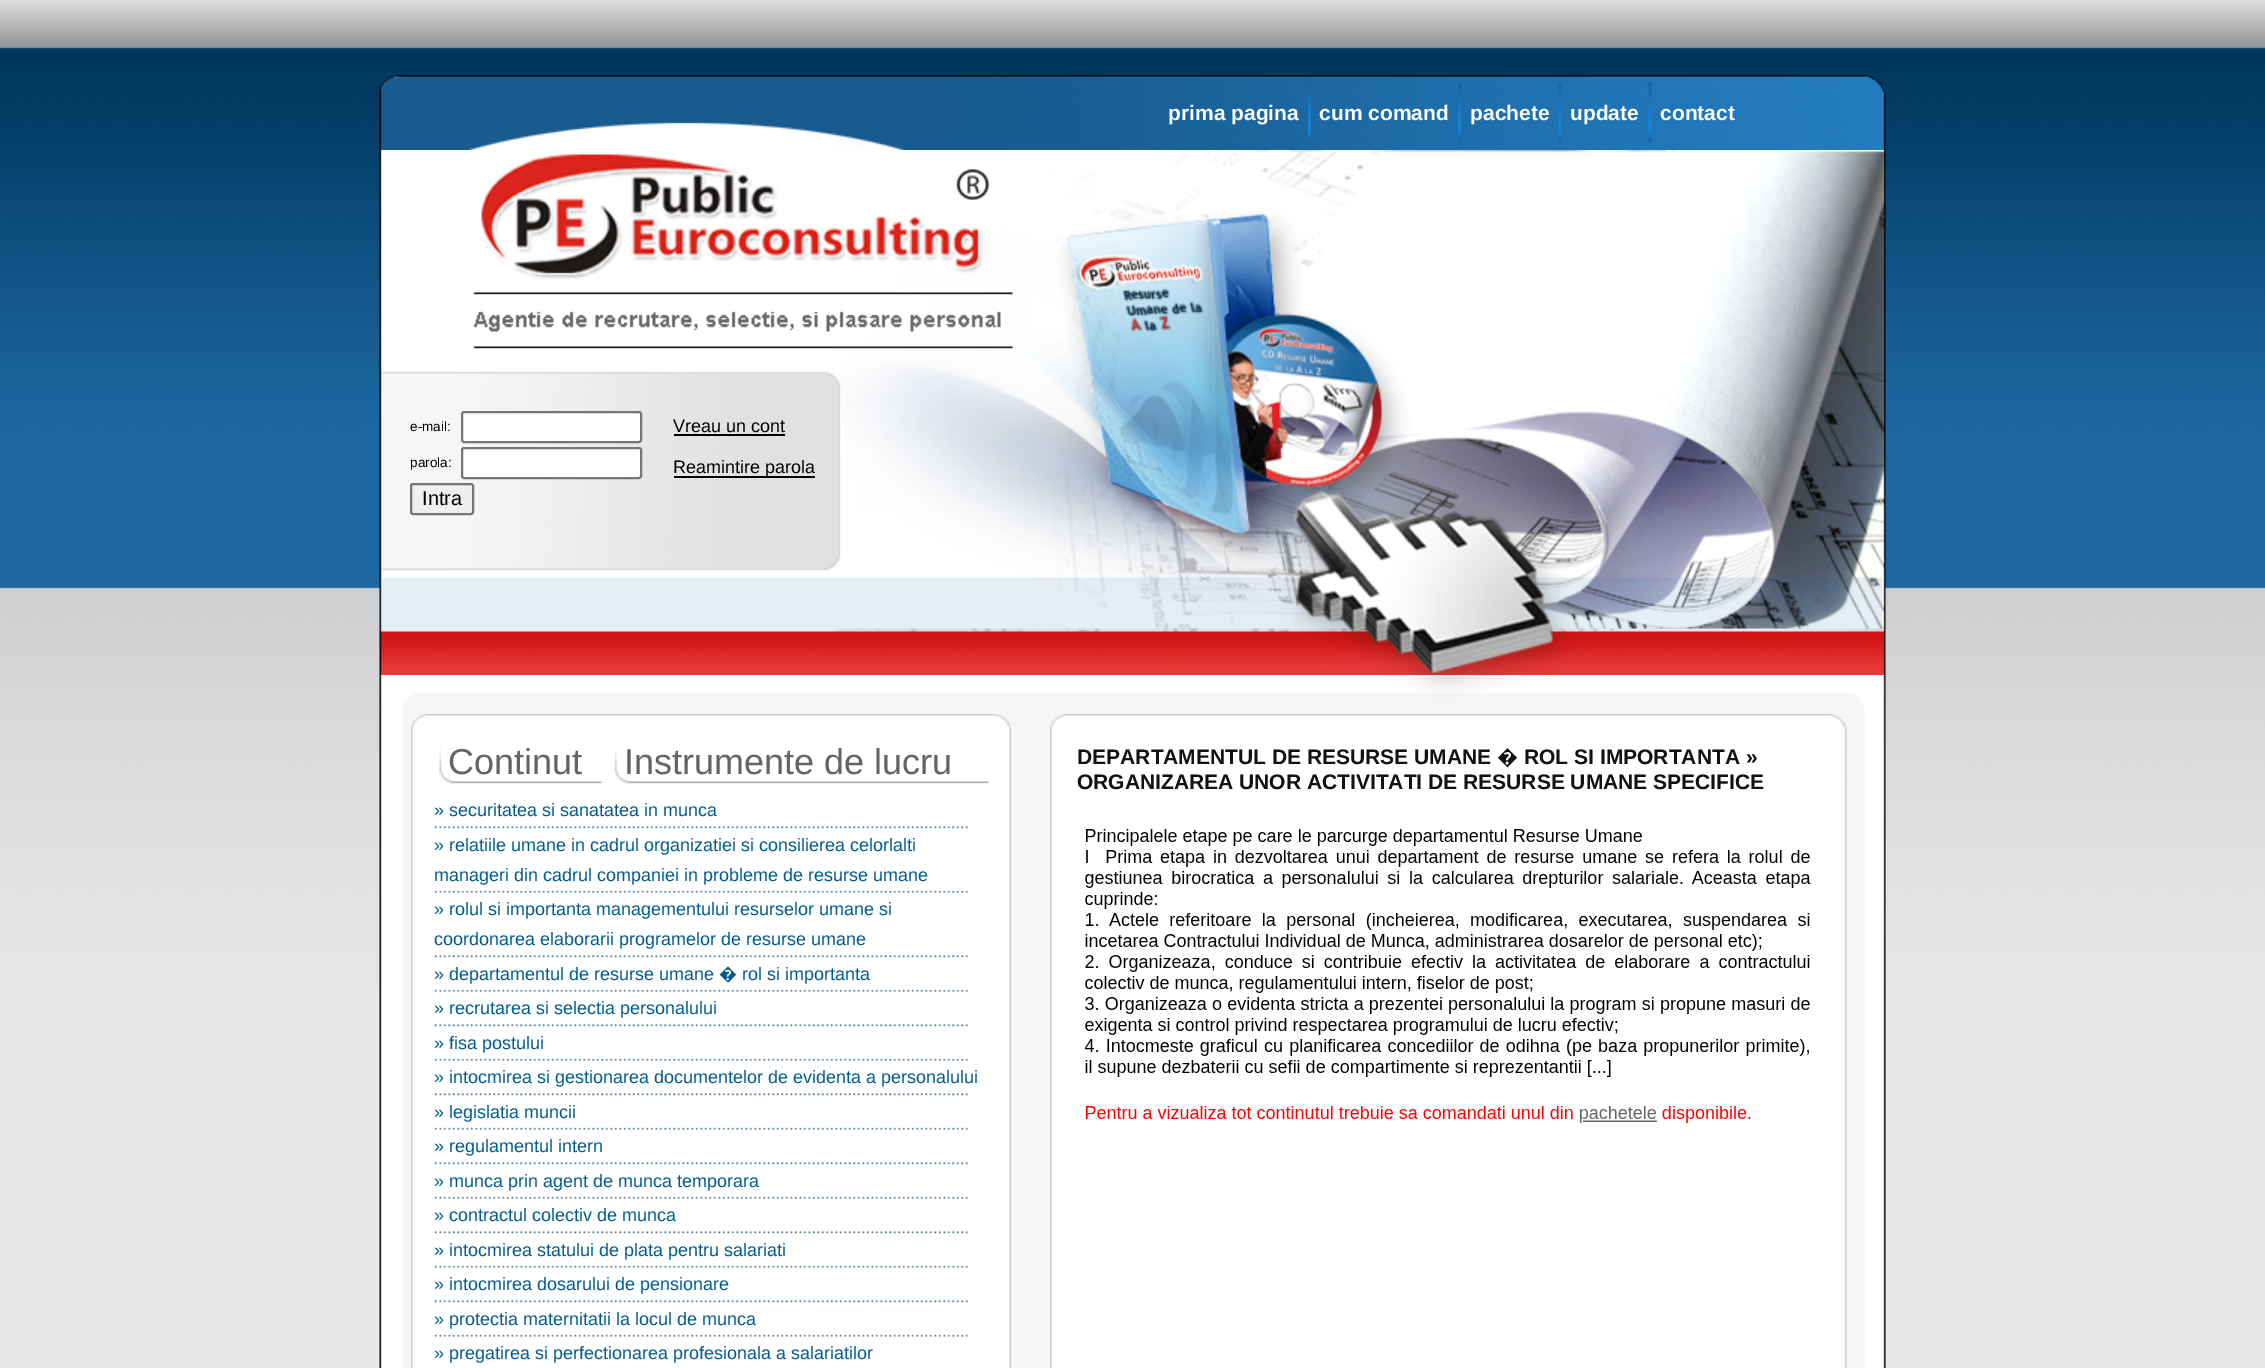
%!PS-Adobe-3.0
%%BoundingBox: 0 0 2265 1368
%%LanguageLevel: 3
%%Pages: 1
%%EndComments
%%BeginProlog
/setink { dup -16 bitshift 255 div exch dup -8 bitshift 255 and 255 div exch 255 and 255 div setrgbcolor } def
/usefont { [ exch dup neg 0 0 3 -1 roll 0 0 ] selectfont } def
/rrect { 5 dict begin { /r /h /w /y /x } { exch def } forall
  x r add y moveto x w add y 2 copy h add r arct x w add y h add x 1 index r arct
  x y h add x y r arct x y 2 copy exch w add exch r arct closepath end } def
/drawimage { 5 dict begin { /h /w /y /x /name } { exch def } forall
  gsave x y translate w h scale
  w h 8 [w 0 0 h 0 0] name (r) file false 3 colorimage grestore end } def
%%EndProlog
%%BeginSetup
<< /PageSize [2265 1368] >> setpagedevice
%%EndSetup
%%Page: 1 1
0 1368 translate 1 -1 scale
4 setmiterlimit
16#FFFFFF setink
0 0 2265 1368 rectfill
(img1.raw) 0 0 2265 1368 drawimage
(img2.raw) 379 75 638 75 drawimage
(img3.raw) 1017 75 869 75 drawimage
/LiberationSans-Bold 21 usefont
1168 120 moveto (prima pagina) show
(img4.raw) 1308 82 3 60 drawimage
1319 120 moveto (cum comand) show
(img5.raw) 1458 82 3 61 drawimage
1470 120 moveto (pachete) show
(img6.raw) 1558 82 4 61 drawimage
1570 120 moveto (update) show
(img7.raw) 1648 82 4 61 drawimage
1660 120 moveto (contact) show
(img8.raw) 379 150 638 525 drawimage
/LiberationSans-Regular 13.5 usefont
16#000000 setink
410 431 moveto (e-mail:) show
16#FFFFFF setink
462 412 179 30 2 rrect gsave fill grestore
16#767676 setink
2 setlinewidth
stroke
/LiberationSans-Regular 18 usefont
16#000000 setink
673 432 moveto (Vreau un cont) show
674 434 111 2 rectfill
/LiberationSans-Regular 13.5 usefont
410 467 moveto (parola:) show
16#FFFFFF setink
462 448 179 30 2 rrect gsave fill grestore
16#767676 setink
stroke
16#000000 setink
674 476 141 2 rectfill
/LiberationSans-Regular 18 usefont
673 473 moveto (Reamintire parola) show
16#EFEFEF setink
411 484 62 30 2 rrect gsave fill grestore
16#767676 setink
stroke
/LiberationSans-Regular 20 usefont
16#000000 setink
422 505 moveto (Intra) show
(img9.raw) 1017 150 869 525 drawimage
(img10.raw) 379 675 1507 39 drawimage
(img11.raw) 379 714 1507 654 drawimage
(img12.raw) 411 714 15 15 drawimage
(img13.raw) 426 714 569 15 drawimage
(img14.raw) 994 714 17 15 drawimage
(img15.raw) 411 729 15 639 drawimage
16#FFFFFF setink
426 729 569 639 rectfill
(img16.raw) 439 747 163 37 drawimage
/LiberationSans-Regular 36 usefont
16#636466 setink
448 774 moveto (Continut) show
(img17.raw) 614 748 375 36 drawimage
624 774 moveto (Instrumente de lucru) show
/LiberationSans-Regular 18 usefont
16#005B90 setink
434 816 moveto (» securitatea si sanatatea in munca) show
(img18.raw) 434 826 534 3 drawimage
434 851 moveto (» relatiile umane in cadrul organizatiei si consilierea celorlalti) show
434 881 moveto (manageri din cadrul companiei in probleme de resurse umane) show
(img19.raw) 434 890 534 3 drawimage
434 915 moveto (» rolul si importanta managementului resurselor umane si) show
434 945 moveto (coordonarea elaborarii programelor de resurse umane) show
(img18.raw) 434 955 534 3 drawimage
434 980 moveto (» departamentul de resurse umane) show
/NotoSans-Regular 18 usefont
719 980 moveto (�) show
/LiberationSans-Regular 18 usefont
742 980 moveto (rol si importanta) show
(img19.raw) 434 989 534 3 drawimage
434 1014 moveto (» recrutarea si selectia personalului) show
(img18.raw) 434 1024 534 3 drawimage
434 1049 moveto (» fisa postului) show
(img19.raw) 434 1058 534 3 drawimage
434 1083 moveto (» intocmirea si gestionarea documentelor de evidenta a personalului) show
(img18.raw) 434 1093 534 3 drawimage
434 1118 moveto (» legislatia muncii) show
(img19.raw) 434 1127 534 3 drawimage
434 1152 moveto (» regulamentul intern) show
(img18.raw) 434 1162 534 3 drawimage
434 1187 moveto (» munca prin agent de munca temporara) show
(img19.raw) 434 1196 534 3 drawimage
434 1221 moveto (» contractul colectiv de munca) show
(img18.raw) 434 1231 534 3 drawimage
434 1256 moveto (» intocmirea statului de plata pentru salariati) show
(img19.raw) 434 1265 534 3 drawimage
434 1290 moveto (» intocmirea dosarului de pensionare) show
(img18.raw) 434 1300 534 3 drawimage
434 1325 moveto (» protectia maternitatii la locul de munca) show
(img19.raw) 434 1334 534 3 drawimage
434 1359 moveto (» pregatirea si perfectionarea profesionala a salariatilor) show
(img20.raw) 995 729 16 639 drawimage
(img12.raw) 1050 714 15 15 drawimage
(img21.raw) 1065 714 765 15 drawimage
(img22.raw) 1830 714 17 15 drawimage
(img15.raw) 1050 729 15 639 drawimage
16#FFFFFF setink
1065 729 765 639 rectfill
/LiberationSans-Bold 21 usefont
16#111111 setink
1077 764 moveto (DEPARTAMENTUL DE RESURSE UMANE) show
/NotoSans-Bold 21 usefont
1497 764 moveto (�) show
/LiberationSans-Bold 21 usefont
1524 764 moveto (ROL SI IMPORTANTA ») show
1077 789 moveto (ORGANIZAREA UNOR ACTIVITATI DE RESURSE UMANE SPECIFICE) show
(img23.raw) 1084 829 727 294 drawimage
(img24.raw) 1830 729 17 639 drawimage
showpage
%%EOF
